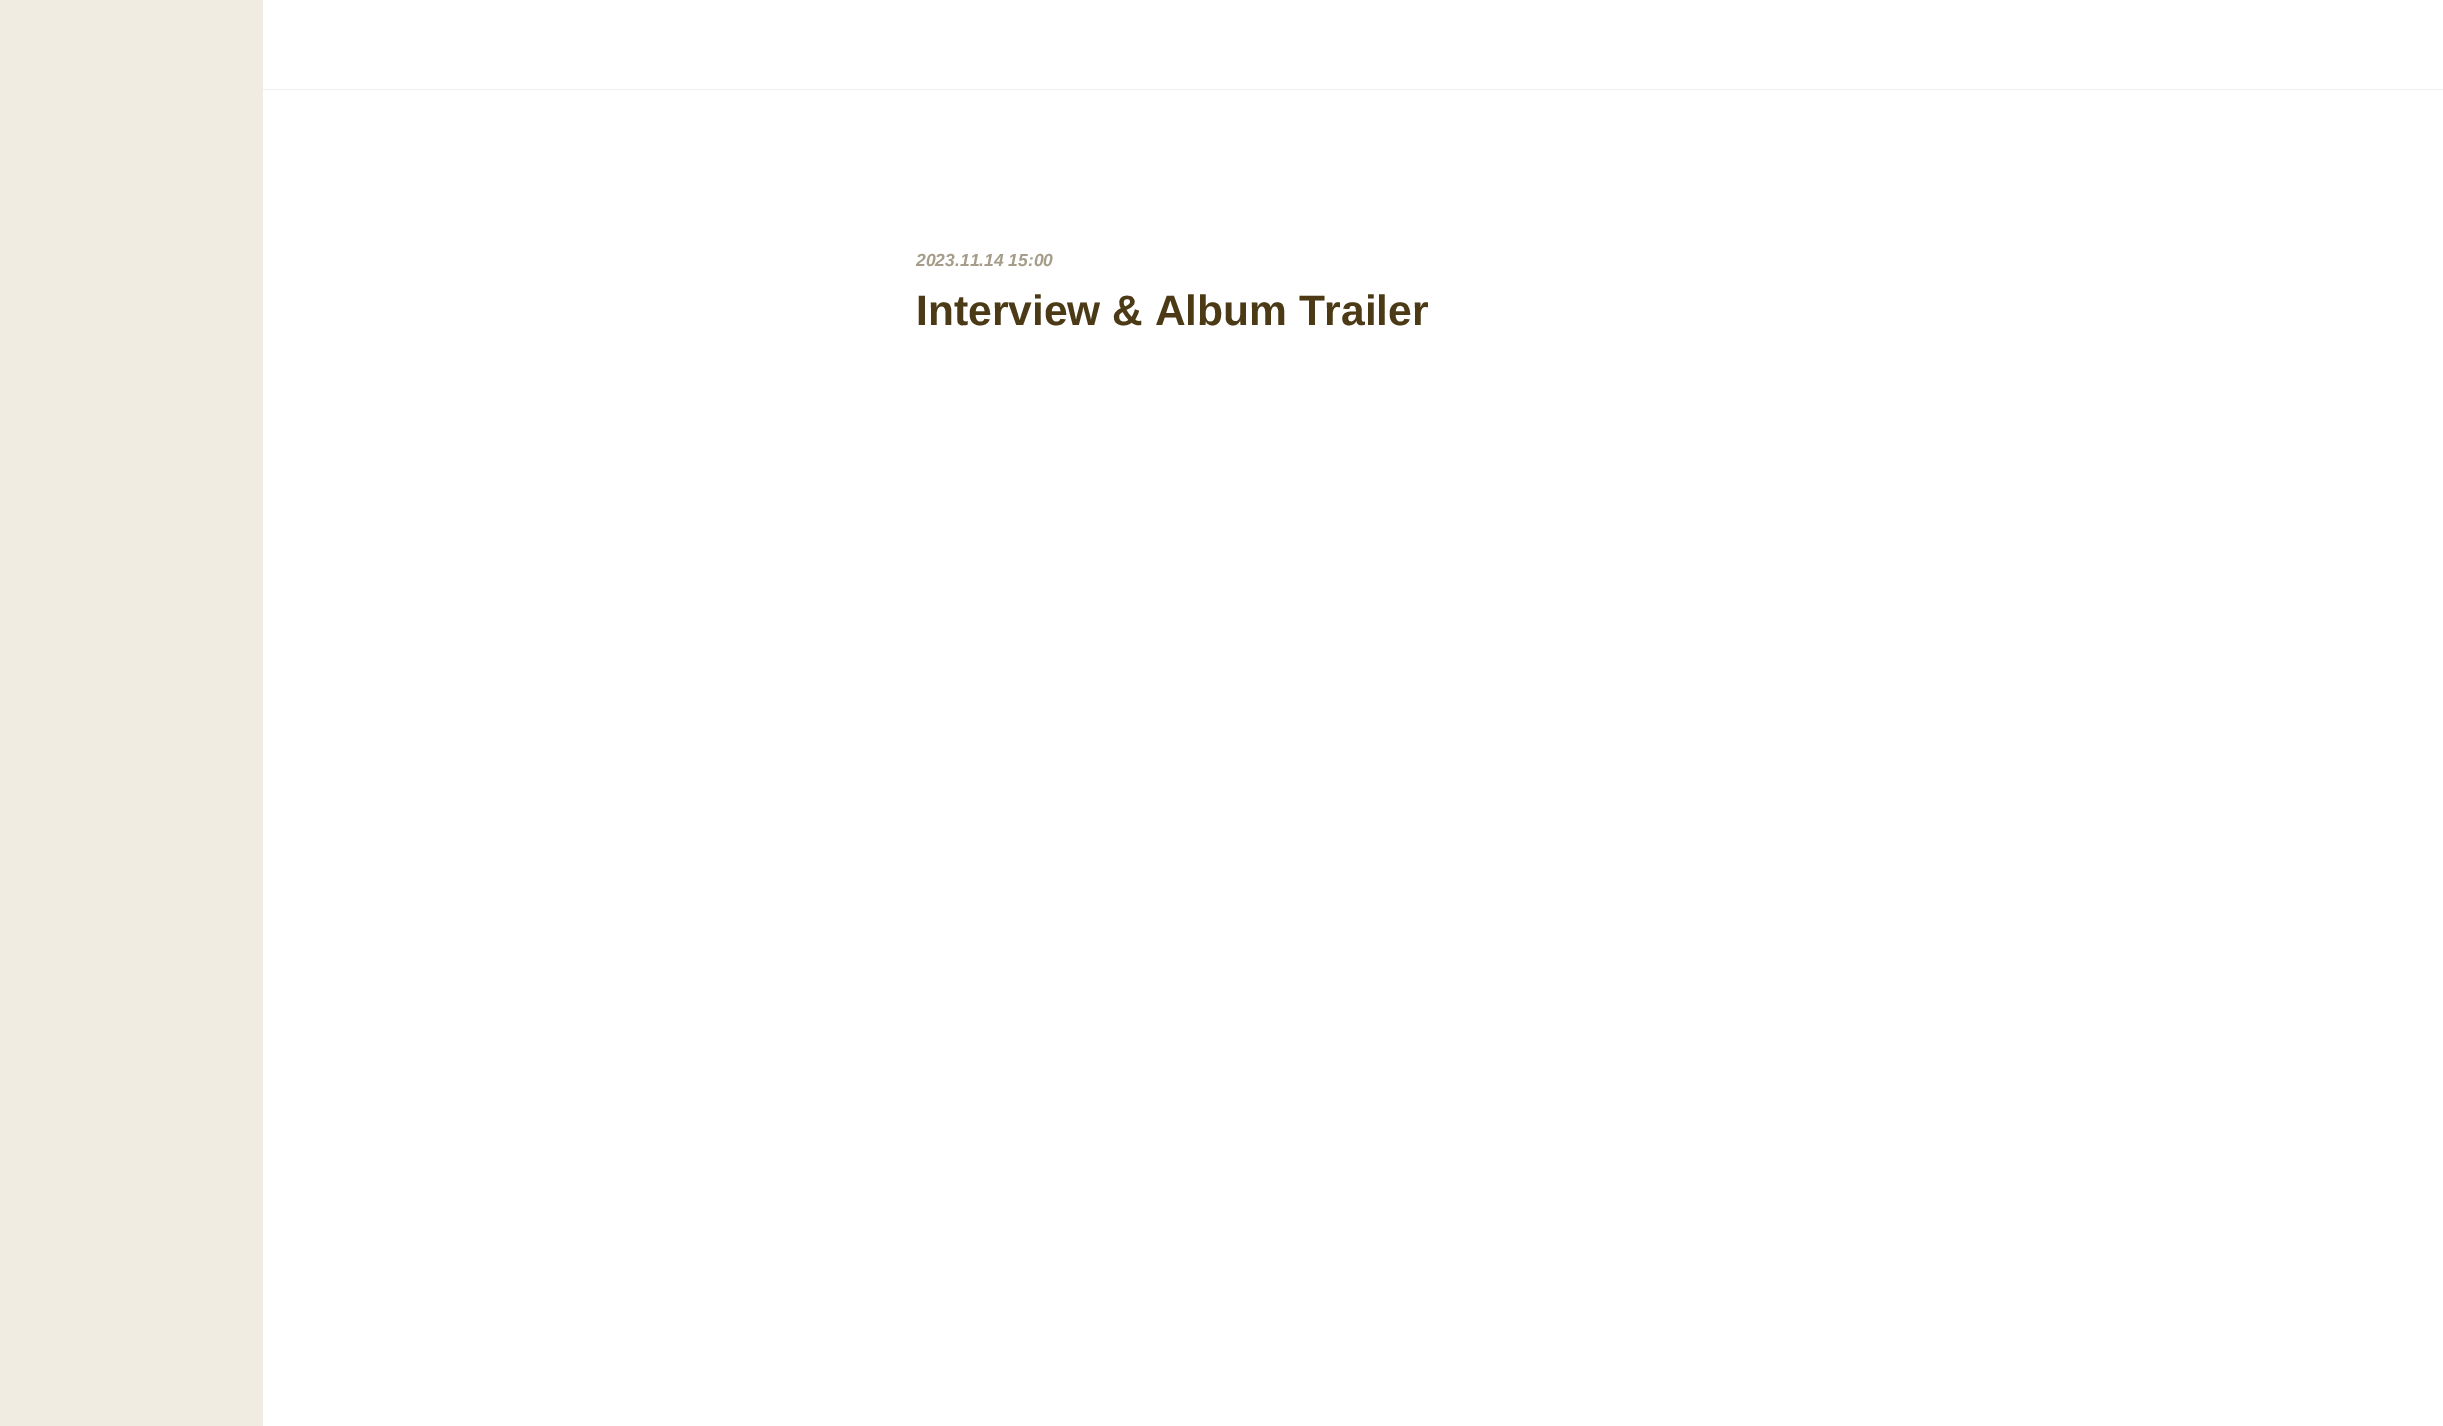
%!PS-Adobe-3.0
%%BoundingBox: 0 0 2443 1426
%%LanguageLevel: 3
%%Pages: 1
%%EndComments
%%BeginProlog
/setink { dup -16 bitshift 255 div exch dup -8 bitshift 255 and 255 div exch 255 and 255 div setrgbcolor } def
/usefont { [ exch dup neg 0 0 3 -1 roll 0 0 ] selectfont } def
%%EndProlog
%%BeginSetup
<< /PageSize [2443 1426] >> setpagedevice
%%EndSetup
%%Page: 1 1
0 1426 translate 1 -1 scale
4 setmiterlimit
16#FFFFFF setink
0 0 2443 1426 rectfill
16#F1ECE1 setink
0 0 263 1426 rectfill
16#EEEEEE setink
263 89 2180 1 rectfill
/LiberationSans-BoldItalic 17.5 usefont
16#A59D8A setink
916 266 moveto (2023.11.14 15:00) show
/LiberationSans-Bold 42.5 usefont
16#4B3A15 setink
916 325 moveto (Interview & Album Trailer) show
showpage
%%EOF
